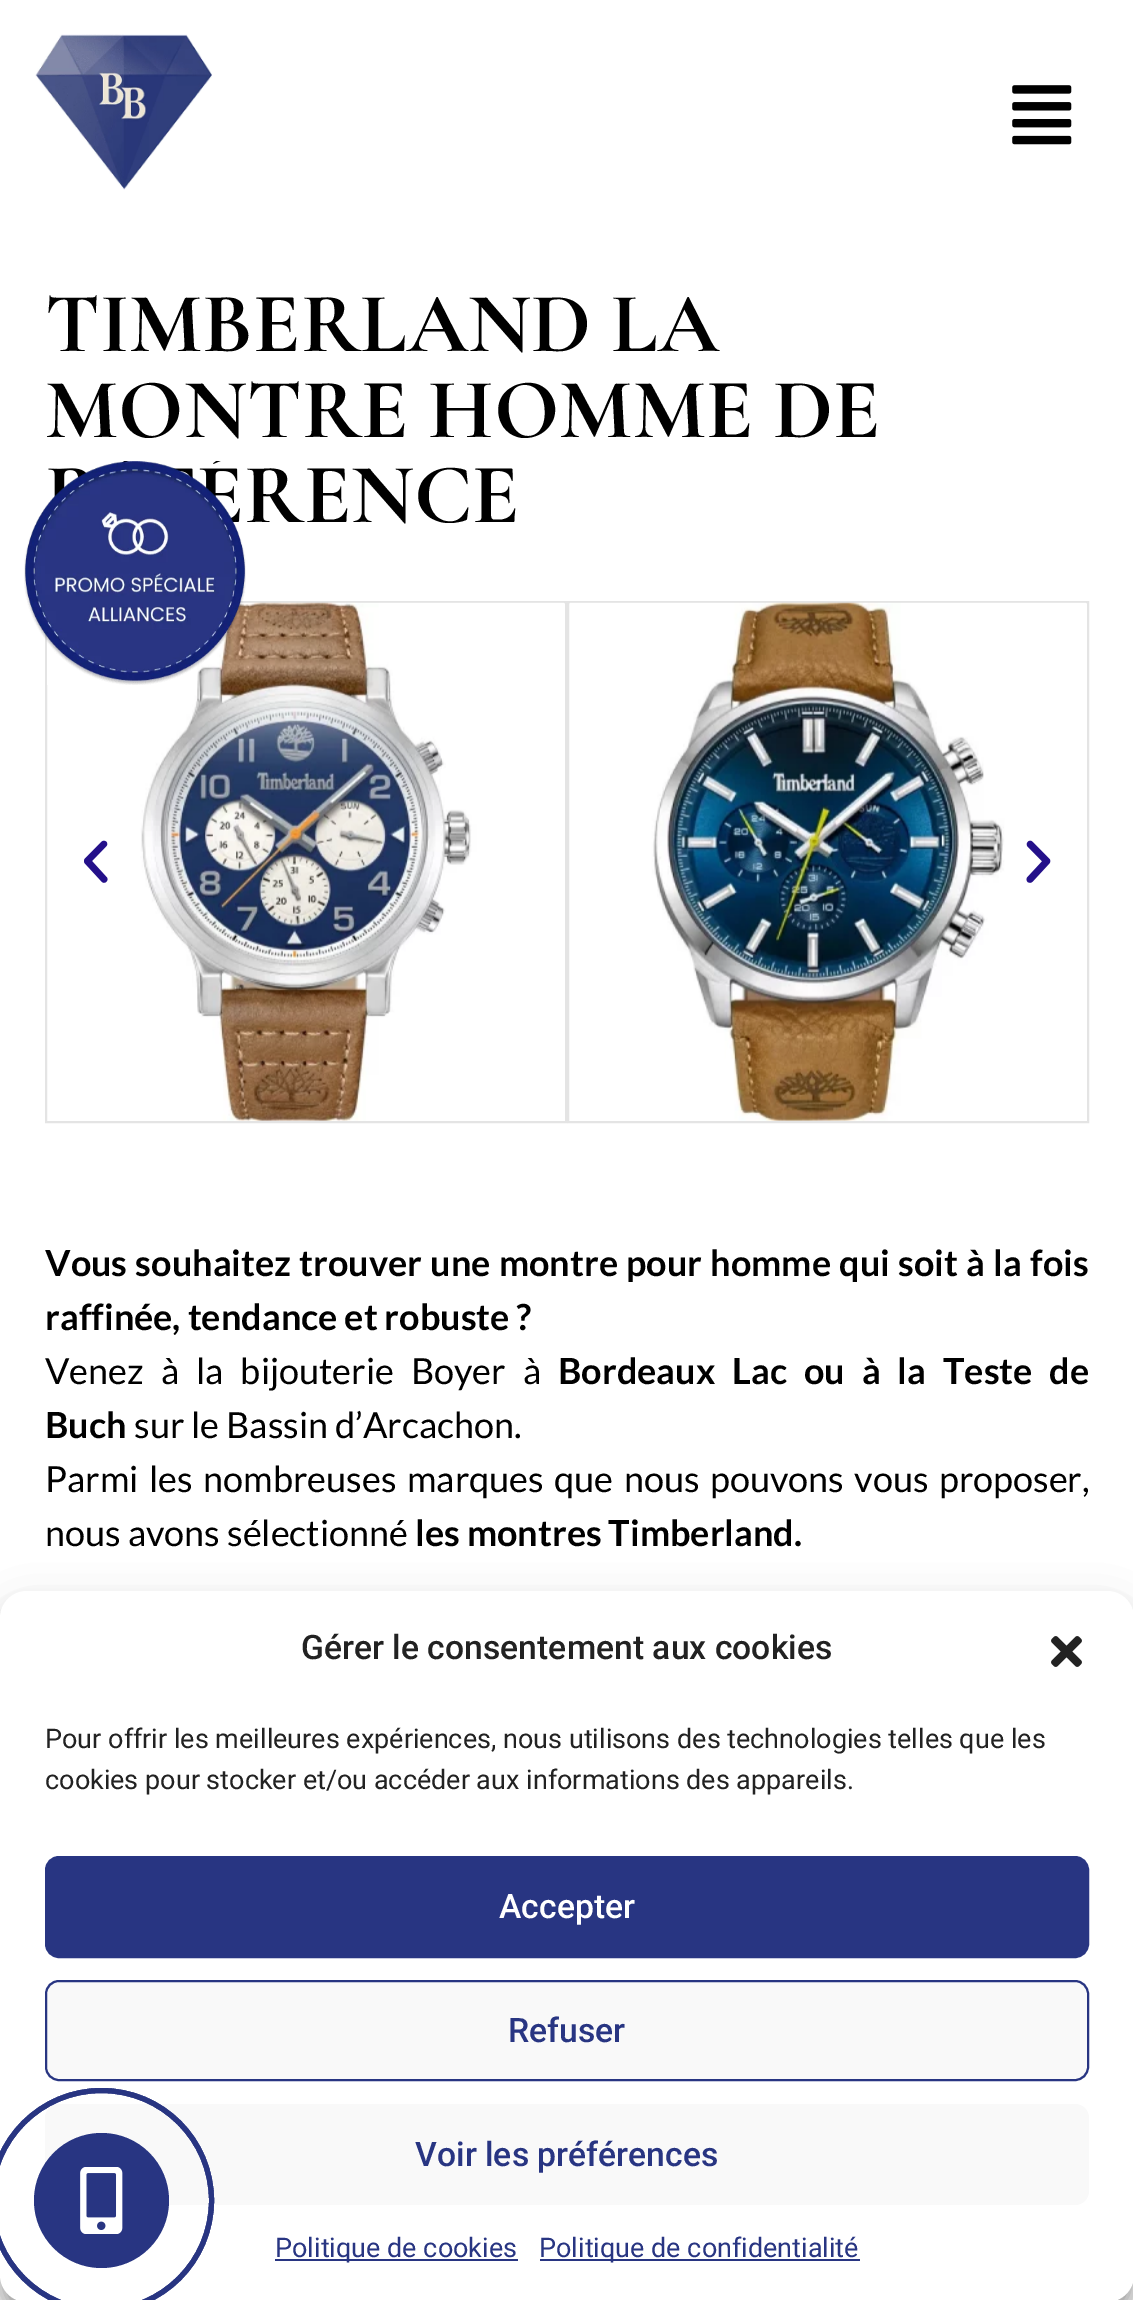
%!PS-Adobe-3.0
%%BoundingBox: 0 0 1133 2300
%%LanguageLevel: 3
%%Pages: 1
%%EndComments
%%BeginProlog
/setink { dup -16 bitshift 255 div exch dup -8 bitshift 255 and 255 div exch 255 and 255 div setrgbcolor } def
/usefont { [ exch dup neg 0 0 3 -1 roll 0 0 ] selectfont } def
/setalpha { dup .setfillconstantalpha .setstrokeconstantalpha } def
/disc { newpath 0 360 arc closepath } def
/rrect { 5 dict begin { /r /h /w /y /x } { exch def } forall
  x r add y moveto x w add y 2 copy h add r arct x w add y h add x 1 index r arct
  x y h add x y r arct x y 2 copy exch w add exch r arct closepath end } def
/softshadow { 12 dict begin { /a /b /q /h /w /y /x } { exch def } forall gsave /was 0 def
  9 -2 -9 { dup b mul 4 div /e exch def 1 sub .425 mul 2.718 exch exp 1 add a .99 .min exch div /now exch def
    1 1 now sub 1 was sub div sub setalpha /was now def
    w h .min e 2 mul add 0 gt { x e sub y e sub w e 2 mul add h e 2 mul add
      q e add b .6 mul add w h .min 2 div e add .min 0 .max rrect fill } if } for grestore end } def
/drawimage { 5 dict begin { /h /w /y /x /name } { exch def } forall
  gsave x y translate w h scale
  w h 8 [w 0 0 h 0 0] name (r) file false 3 colorimage grestore end } def
%%EndProlog
%%BeginSetup
<< /PageSize [1133 2300] /PageUsesTransparency true >> setpagedevice
%%EndSetup
%%Page: 1 1
0 .pushpdf14devicefilter
0 2300 translate 1 -1 scale
4 setmiterlimit
16#FFFFFF setink
0 0 1133 2300 rectfill
(img1.raw) 35 34 177 156 drawimage
(img2.raw) 1012 85 60 60 drawimage
/CormorantGaramond-Bold 85.5 usefont
16#000000 setink
[
    [(TIMBERLAND LA) 45 351]
    [(MONTRE HOMME DE) 45 437]
    [(RENCE) 244 522]
] { aload pop moveto show } forall
16#E4E4E4 setink
2 setlinewidth
46 602 520 520 rectstroke
(img3.raw) 48 602 516 519 drawimage
568 602 520 520 rectstroke
(img4.raw) 570 602 516 519 drawimage
(img5.raw) 84 840 24 43 drawimage
(img6.raw) 1026 840 25 43 drawimage
/Lato-Bold 36 usefont
16#000000 setink
45 1276 moveto 1.25 0 32 (Vous souhaitez trouver une montre pour homme qui soit à la fois) widthshow
45 1330 moveto (raffinée, tendance et robuste ?) show
/Lato-Regular 36 usefont
45 1384 moveto 10 0 32 (Venez à la bijouterie Boyer à) widthshow
/Lato-Bold 36 usefont
558 1384 moveto 10 0 32 (Bordeaux Lac ou à la Teste de) widthshow
45 1438 moveto (Buch) show
/Lato-Regular 36 usefont
134 1438 moveto (sur le Bassin d’Arcachon.) show
45 1492 moveto 3.5 0 32 (Parmi les nombreuses marques que nous pouvons vous proposer,) widthshow
45 1546 moveto (nous avons sélectionné) show
/Lato-Bold 36 usefont
415 1546 moveto (les montres Timberland.) show
0 1604 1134 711 27 7 0.23 softshadow
0 1613 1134 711 27 22.5 0.19 softshadow
16#FFFFFF setink
0 1591 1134 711 27 rrect fill
16#F9F9F9 setink
45 2104 1044 101 14 rrect fill
16#283582 setink
101.5 2200.5 67.5 disc fill
(img7.raw) 80 2167 43 67 drawimage
5 setlinewidth
101.5 2200.5 110 disc stroke
101.5 2200.5 110 disc stroke
(img8.raw) 24 461 222 224 drawimage
/Roboto-Medium 33.75 usefont
16#222222 setink
301 1659 moveto (Gérer le consentement aux cookies) show
(img9.raw) 1051 1636 31 31 drawimage
/Roboto-Regular 27 usefont
45 1748 moveto (Pour offrir les meilleures expériences, nous utilisons des technologies telles que les) show
45 1789 moveto (cookies pour stocker et/ou accéder aux informations des appareils.) show
16#283582 setink
46 1857 1042 100 13 rrect gsave fill grestore
2 setlinewidth
stroke
/Roboto-Medium 33.75 usefont
16#FFFFFF setink
499 1918 moveto (Accepter) show
16#F9F9F9 setink
46 1981 1042 99 13 rrect gsave fill grestore
16#283582 setink
stroke
508 2042 moveto (Refuser) show
415 2166 moveto (Voir les préférences) show
275 2259 243 2 rectfill
/Roboto-Regular 27 usefont
275 2257 moveto (Politique de cookies) show
540 2259 320 2 rectfill
539 2257 moveto (Politique de confidentialité) show
.poppdf14devicefilter showpage
%%EOF
